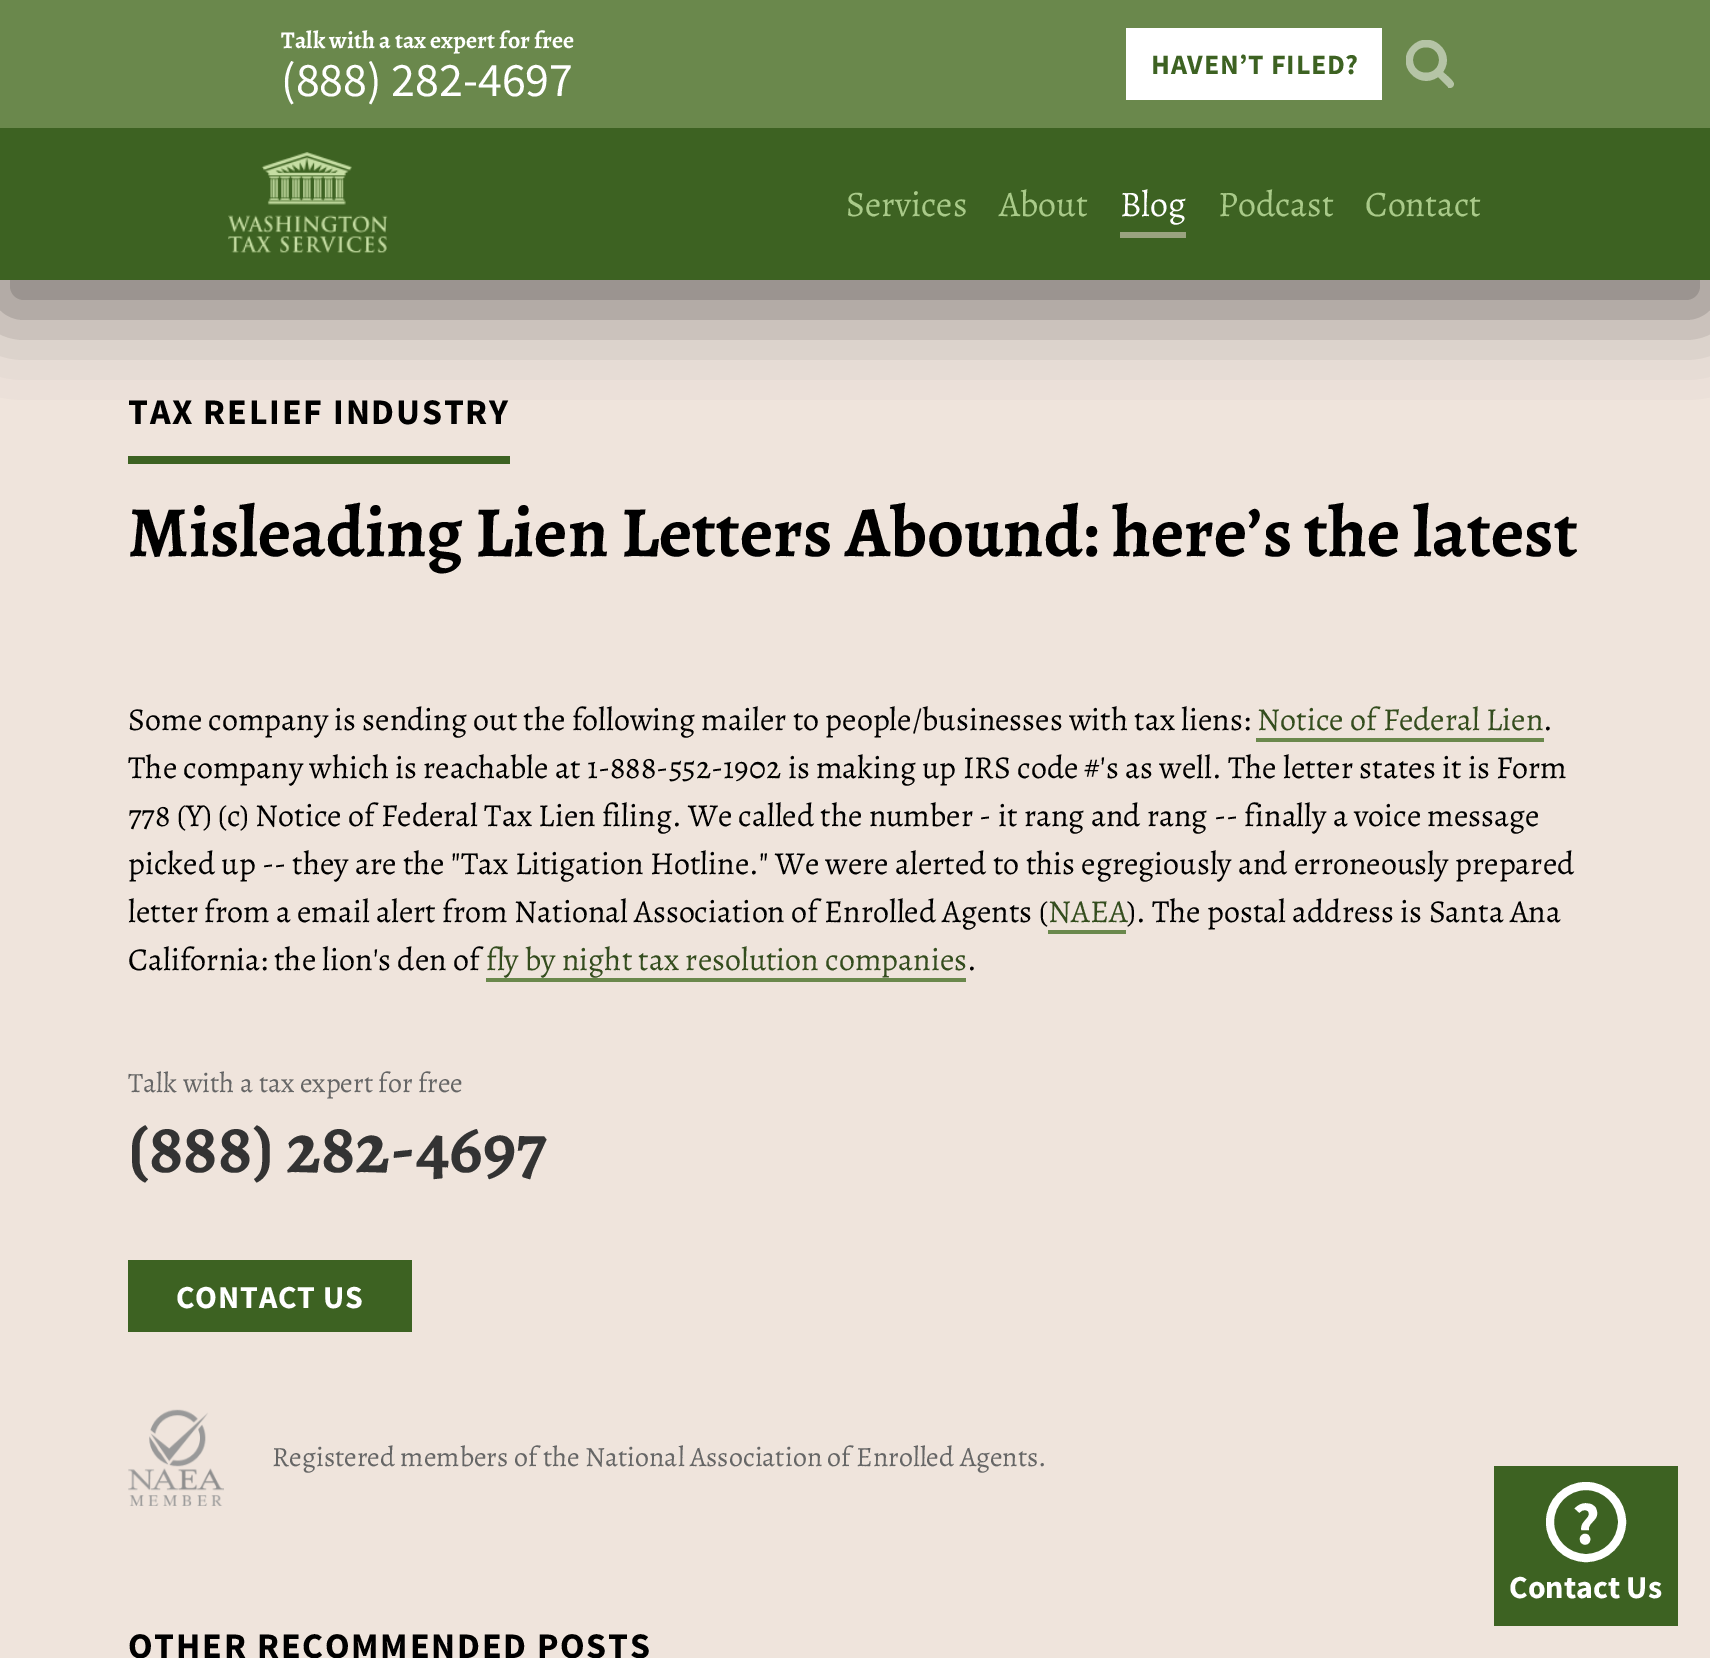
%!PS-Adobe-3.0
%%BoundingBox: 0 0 1710 1658
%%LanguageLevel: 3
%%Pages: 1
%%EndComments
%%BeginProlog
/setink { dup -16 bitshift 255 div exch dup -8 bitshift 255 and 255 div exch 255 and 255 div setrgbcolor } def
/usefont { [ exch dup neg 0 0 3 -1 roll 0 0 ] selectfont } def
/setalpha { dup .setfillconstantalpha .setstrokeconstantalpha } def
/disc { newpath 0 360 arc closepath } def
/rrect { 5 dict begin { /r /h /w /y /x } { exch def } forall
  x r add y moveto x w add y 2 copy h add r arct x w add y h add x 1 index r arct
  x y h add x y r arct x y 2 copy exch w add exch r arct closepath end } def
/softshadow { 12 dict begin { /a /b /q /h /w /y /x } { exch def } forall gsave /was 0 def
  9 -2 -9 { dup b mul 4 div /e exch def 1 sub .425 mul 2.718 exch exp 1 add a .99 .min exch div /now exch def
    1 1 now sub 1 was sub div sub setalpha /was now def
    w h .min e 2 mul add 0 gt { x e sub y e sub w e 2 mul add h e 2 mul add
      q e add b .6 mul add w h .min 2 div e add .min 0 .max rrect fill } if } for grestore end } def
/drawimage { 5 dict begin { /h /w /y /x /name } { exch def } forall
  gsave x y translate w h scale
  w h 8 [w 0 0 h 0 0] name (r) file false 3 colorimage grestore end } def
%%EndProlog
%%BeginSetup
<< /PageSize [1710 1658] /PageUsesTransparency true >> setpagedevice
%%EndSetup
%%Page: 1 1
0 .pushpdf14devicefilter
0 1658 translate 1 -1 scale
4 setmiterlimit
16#EFE4DC setink
0 0 1710 1658 rectfill
16#000000 setink
0 30 1710 280 0 40 0.5 softshadow
16#3D6222 setink
0 128 1710 152 rectfill
16#6A884C setink
0 0 1710 128 rectfill
/Alegreya-Bold 24 usefont
16#FFFFFF setink
281 48 moveto (Talk with a tax expert for free) show
/SourceSansPro-Regular 48 usefont
281 96 moveto (\(888\) 282-4697) show
1126 28 256 72 rectfill
/SourceSansPro-Bold 28 usefont
16#3D6222 setink
1151 74 moveto 0.75 0 (HAVEN’T FILED?) ashow
gsave
1406 40 48 48 rectclip
16#B5C4A6 setink
1439 60 moveto 1439 43 1413 43 1413 60 curveto 1413 77 1439 77 1439 60 curveto closepath 1454 84 moveto 1454 86 1452 88 1450 88 curveto 1449 88 1448 88 1448 87 curveto 1438 77 lineto 1418 91 1394 64 1412 46 curveto 1430 28 1457 52 1443 72 curveto 1445 74 1454 81 1454 84 curveto closepath eofill
grestore
(img1.raw) 228 152 160 101 drawimage
/Alegreya-Regular 36 usefont
16#A9CA89 setink
846 216 moveto (Services) show
999 216 moveto (About) show
16#FFFFFF setink
1120 216 moveto (Blog) show
16#9AA380 setink
1120 232 66 6 rectfill
16#A9CA89 setink
1218 216 moveto (Podcast) show
1365 216 moveto (Contact) show
16#3D6222 setink
128 456 382 8 rectfill
/SourceSansPro-Bold 36 usefont
16#000000 setink
128 424 moveto 1.8 0 (TAX RELIEF INDUSTRY) ashow
/Alegreya-Bold 72 usefont
128 556 moveto (Misleading Lien Letters Abound: here’s the latest) show
/Alegreya-Regular 32 usefont
128 730 moveto (Some company is sending out the following mailer to people/businesses with tax liens:) show
16#344D1E setink
1257 730 moveto (Notice of Federal Lien) show
16#6A884C setink
1256 738 288 4 rectfill
16#000000 setink
[
    [(.) 1543 730]
    [(The company which is reachable at 1-888-552-1902 is making up IRS code #'s as well. The letter states it is Form) 128 778]
    [(778 \(Y\) \(c\) Notice of Federal Tax Lien filing. We called the number - it rang and rang -- finally a voice message) 128 826]
    [(picked up -- they are the "Tax Litigation Hotline." We were alerted to this egregiously and erroneously prepared) 128 874]
    [(letter from a email alert from National Association of Enrolled Agents \() 128 922]
] { aload pop moveto show } forall
16#344D1E setink
1048 922 moveto (NAEA) show
16#6A884C setink
1048 930 78 4 rectfill
16#000000 setink
1127 922 moveto (\). The postal address is Santa Ana) show
128 970 moveto (California: the lion's den of) show
16#344D1E setink
486 970 moveto (fly by night tax resolution companies) show
16#6A884C setink
486 978 480 4 rectfill
16#000000 setink
967 970 moveto (.) show
/Alegreya-Regular 28 usefont
16#666666 setink
128 1092 moveto (Talk with a tax expert for free) show
/Alegreya-Bold 72 usefont
16#333333 setink
128 1172 moveto (\(888\) 282-4697) show
16#3D6222 setink
128 1260 284 72 rectfill
/SourceSansPro-Bold 32 usefont
16#FFFFFF setink
176 1308 moveto 0.75 0 (CONTACT US) ashow
(img2.raw) 128 1409 96 97 drawimage
/Alegreya-Regular 28 usefont
16#666666 setink
272 1466 moveto (Registered members of the National Association of Enrolled Agents.) show
/SourceSansPro-Bold 36 usefont
16#000000 setink
128 1658 moveto 1.8 0 (OTHER RECOMMENDED POSTS) ashow
16#3D6222 setink
1494 1466 184 160 rectfill
16#FFFFFF setink
8 setlinewidth
1586 1522 36 disc stroke
/SourceSansPro-Bold 60 usefont
1572 1544 moveto (?) show
/SourceSansPro-Bold 32 usefont
1509 1598 moveto (Contact Us) show
.poppdf14devicefilter showpage
%%EOF
